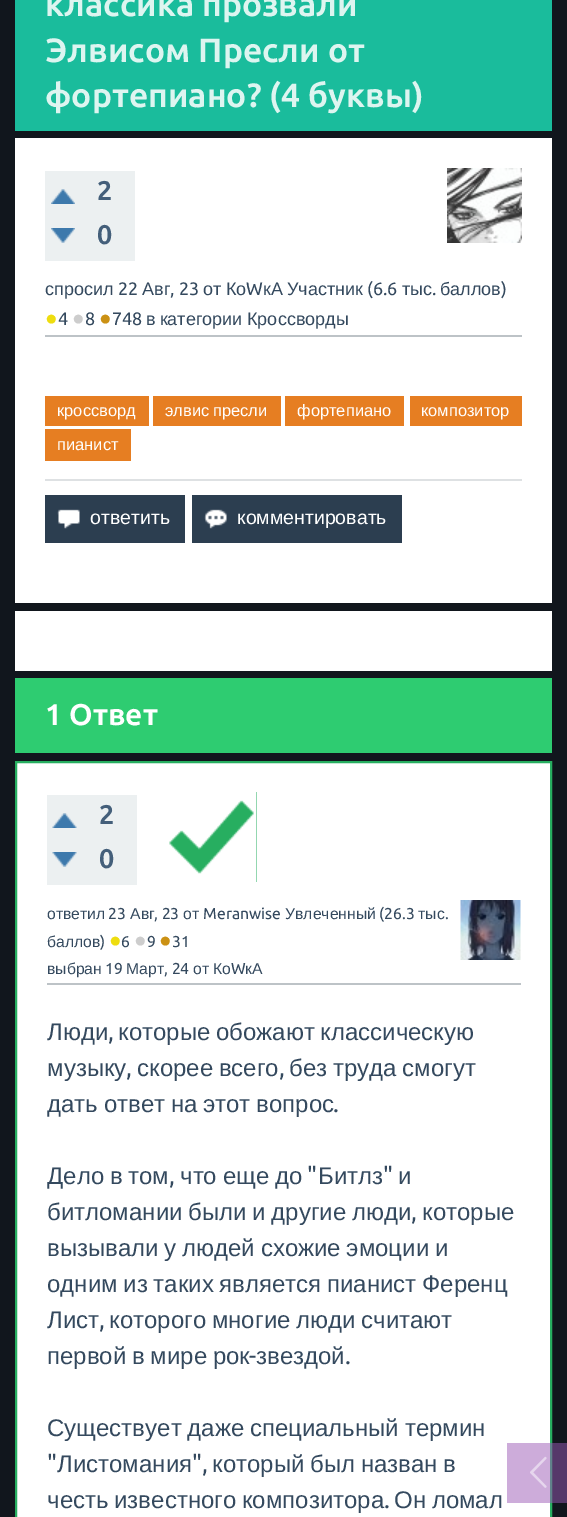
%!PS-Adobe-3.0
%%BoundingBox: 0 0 567 1517
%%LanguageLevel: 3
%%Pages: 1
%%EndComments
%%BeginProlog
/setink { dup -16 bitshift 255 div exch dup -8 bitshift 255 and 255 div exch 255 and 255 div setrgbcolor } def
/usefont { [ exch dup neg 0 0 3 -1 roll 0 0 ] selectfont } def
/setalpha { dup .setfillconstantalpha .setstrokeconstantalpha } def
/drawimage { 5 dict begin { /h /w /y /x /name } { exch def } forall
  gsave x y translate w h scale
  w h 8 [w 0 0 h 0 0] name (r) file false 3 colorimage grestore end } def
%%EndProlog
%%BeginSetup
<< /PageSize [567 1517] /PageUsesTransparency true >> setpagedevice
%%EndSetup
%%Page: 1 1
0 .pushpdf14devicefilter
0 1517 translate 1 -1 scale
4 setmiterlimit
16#11161D setink
0 0 567 1517 rectfill
16#1ABC9C setink
15 0 537 131 rectfill
/Ubuntu-Bold 33.6 usefont
16#DDF5F0 setink
[
    [(классика прозвали) 45 16]
    [(Элвисом Пресли от) 45 62]
    [(фортепиано? \(4 буквы\)) 45 107]
] { aload pop moveto show } forall
16#FFFFFF setink
15 138 537 465 rectfill
16#ECF0F1 setink
45 171 90 90 rectfill
(img1.raw) 51 189 24 15 drawimage
(img2.raw) 51 228 24 15 drawimage
/Ubuntu-Bold 27 usefont
16#445F7A setink
97 200 moveto (2) show
97 244 moveto (0) show
(img3.raw) 447 168 75 75 drawimage
16#BDC3C7 setink
45 335 477 2 rectfill
/LiberationSans-Regular 18 usefont
16#34495E setink
203 295 moveto (от) show
226 295 moveto (Ко) show
/Ubuntu-Regular 18 usefont
246 295 moveto (W) show
/LiberationSans-Regular 18 usefont
263 295 moveto (кА) show
287 295 moveto (Участник) show
/Ubuntu-Regular 18 usefont
367 295 moveto (\(6.6) show
/LiberationSans-Regular 18 usefont
402 295 moveto (тыс) show
/Ubuntu-Regular 18 usefont
432 295 moveto (.) show
/LiberationSans-Regular 18 usefont
440 295 moveto (баллов) show
/Ubuntu-Regular 18 usefont
501 295 moveto (\)) show
/LiberationSans-Regular 21 usefont
16#EEDD0F setink
45 325 moveto (●) show
/Ubuntu-Regular 18 usefont
16#34495E setink
58 325 moveto (4) show
/LiberationSans-Regular 21 usefont
16#CDCDCD setink
72 325 moveto (●) show
/Ubuntu-Regular 18 usefont
16#34495E setink
85 325 moveto (8) show
/LiberationSans-Regular 21 usefont
16#CB9114 setink
99 325 moveto (●) show
/Ubuntu-Regular 18 usefont
16#34495E setink
112 325 moveto (748) show
/LiberationSans-Regular 18 usefont
45 295 moveto (спросил) show
/Ubuntu-Regular 18 usefont
118 295 moveto (22) show
/LiberationSans-Regular 18 usefont
142 295 moveto (Авг) show
/Ubuntu-Regular 18 usefont
170 295 moveto (, 23) show
/LiberationSans-Regular 18 usefont
146 325 moveto -1 0 32 (в категории) widthshow
247 325 moveto (Кроссворды) show
16#E67E22 setink
45 396 104 30 rectfill
/LiberationSans-Regular 16.5 usefont
16#FFFFFF setink
57 416 moveto (кроссворд) show
16#E67E22 setink
153 396 128 30 rectfill
16#FFFFFF setink
165 416 moveto -1 0 32 (элвис пресли) widthshow
16#E67E22 setink
285 396 119 30 rectfill
16#FFFFFF setink
297 416 moveto (фортепиано) show
16#E67E22 setink
410 396 112 30 rectfill
16#FFFFFF setink
421 416 moveto (композитор) show
16#E67E22 setink
45 429 86 32 rectfill
16#FFFFFF setink
57 450 moveto (пианист) show
16#DEE1E3 setink
45 479 477 2 rectfill
16#2C3E50 setink
45 495 140 48 rectfill
(img4.raw) 57 509 23 20 drawimage
/LiberationSans-Regular 19.5 usefont
16#FFFFFF setink
90 524 moveto (ответить) show
16#2C3E50 setink
192 495 210 48 rectfill
(img5.raw) 204 509 23 20 drawimage
16#FFFFFF setink
237 524 moveto (комментировать) show
15 611 537 60 rectfill
16#2ECC71 setink
15 678 537 75 rectfill
/Ubuntu-Bold 30 usefont
16#FFFFFF setink
45 725 moveto (1 Ответ) show
16 762 moveto 551 762 lineto 551 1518 lineto 16 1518 lineto closepath gsave fill grestore
16#27AE60 setink
2 setlinewidth
stroke
16#ECF0F1 setink
47 795 90 90 rectfill
(img6.raw) 52 813 25 15 drawimage
(img7.raw) 52 852 25 15 drawimage
/Ubuntu-Bold 27 usefont
16#445F7A setink
99 824 moveto (2) show
99 868 moveto (0) show
16#BDC3C7 setink
47 983 474 2 rectfill
/LiberationSans-Regular 15.75 usefont
16#34495E setink
183 919 moveto (от) show
/Ubuntu-Regular 15.75 usefont
203 919 moveto (Meranwise) show
/LiberationSans-Regular 15.75 usefont
285 919 moveto (Увлеченный) show
/Ubuntu-Regular 15.75 usefont
379 919 moveto (\(26.3) show
/LiberationSans-Regular 15.75 usefont
418 919 moveto (тыс) show
/Ubuntu-Regular 15.75 usefont
445 919 moveto (.) show
/LiberationSans-Regular 15.75 usefont
47 947 moveto (баллов) show
/Ubuntu-Regular 15.75 usefont
100 947 moveto (\)) show
/LiberationSans-Regular 21 usefont
16#EEDD0F setink
109 947 moveto (●) show
/Ubuntu-Regular 15.75 usefont
16#34495E setink
121 947 moveto (6) show
/LiberationSans-Regular 21 usefont
16#CDCDCD setink
134 947 moveto (●) show
/Ubuntu-Regular 15.75 usefont
16#34495E setink
147 947 moveto (9) show
/LiberationSans-Regular 21 usefont
16#CB9114 setink
159 947 moveto (●) show
/Ubuntu-Regular 15.75 usefont
16#34495E setink
172 947 moveto (31) show
/LiberationSans-Regular 15.75 usefont
47 919 moveto (ответил) show
/Ubuntu-Regular 15.75 usefont
108 919 moveto (23) show
/LiberationSans-Regular 15.75 usefont
130 919 moveto (Авг) show
/Ubuntu-Regular 15.75 usefont
154 919 moveto (, 23) show
/LiberationSans-Regular 15.75 usefont
47 974 moveto (выбран) show
/Ubuntu-Regular 15.75 usefont
105 974 moveto (19) show
/LiberationSans-Regular 15.75 usefont
126 974 moveto (Март) show
/Ubuntu-Regular 15.75 usefont
164 974 moveto (, 24) show
/LiberationSans-Regular 15.75 usefont
193 974 moveto (от) show
213 974 moveto (Ко) show
/Ubuntu-Regular 15.75 usefont
231 974 moveto (W) show
/LiberationSans-Regular 15.75 usefont
245 974 moveto (кА) show
(img8.raw) 460 900 61 60 drawimage
16#27AE60 setink
169 792 88 90 rectfill
(img9.raw) 167 792 90 90 drawimage
/LiberationSans-Regular 24 usefont
16#34495E setink
47 1040 moveto (Люди) show
/Ubuntu-Regular 24 usefont
108 1040 moveto (,) show
/LiberationSans-Regular 24 usefont
118 1040 moveto -1 0 32 (которые обожают классическую) widthshow
47 1076 moveto (музыку) show
/Ubuntu-Regular 24 usefont
126 1076 moveto (,) show
/LiberationSans-Regular 24 usefont
137 1076 moveto -1 0 32 (скорее всего) widthshow
/Ubuntu-Regular 24 usefont
279 1076 moveto (,) show
/LiberationSans-Regular 24 usefont
289 1076 moveto -1 0 32 (без труда смогут) widthshow
47 1112 moveto -1 0 32 (дать ответ на этот вопрос) widthshow
/Ubuntu-Regular 24 usefont
333 1112 moveto (.) show
/LiberationSans-Regular 24 usefont
47 1184 moveto -1 0 32 (Дело в том) widthshow
/Ubuntu-Regular 24 usefont
169 1184 moveto (,) show
/LiberationSans-Regular 24 usefont
180 1184 moveto -1 0 32 (что еще до) widthshow
/Ubuntu-Regular 24 usefont
307 1184 moveto (") show
/LiberationSans-Regular 24 usefont
318 1184 moveto (Битлз) show
/Ubuntu-Regular 24 usefont
383 1184 moveto (") show
/LiberationSans-Regular 24 usefont
398 1184 moveto (и) show
47 1220 moveto -1 0 32 (битломании были и другие люди) widthshow
/Ubuntu-Regular 24 usefont
411 1220 moveto (,) show
/LiberationSans-Regular 24 usefont
422 1220 moveto (которые) show
47 1256 moveto -1 0 32 (вызывали у людей схожие эмоции и) widthshow
47 1292 moveto -1 0 32 (одним из таких является пианист Ференц) widthshow
47 1328 moveto (Лист) show
/Ubuntu-Regular 24 usefont
99 1328 moveto (,) show
/LiberationSans-Regular 24 usefont
109 1328 moveto -1 0 32 (которого многие люди считают) widthshow
47 1364 moveto -1 0 32 (первой в мире рок) widthshow
/Ubuntu-Regular 24 usefont
249 1364 moveto (-) show
/LiberationSans-Regular 24 usefont
256 1364 moveto (звездой) show
/Ubuntu-Regular 24 usefont
345 1364 moveto (.) show
/LiberationSans-Regular 24 usefont
47 1436 moveto -1 0 32 (Существует даже специальный термин) widthshow
/Ubuntu-Regular 24 usefont
47 1472 moveto (") show
/LiberationSans-Regular 24 usefont
57 1472 moveto (Листомания) show
/Ubuntu-Regular 24 usefont
192 1472 moveto (",) show
/LiberationSans-Regular 24 usefont
212 1472 moveto -1 0 32 (который был назван в) widthshow
47 1508 moveto -1 0 32 (честь известного композитора) widthshow
/Ubuntu-Regular 24 usefont
384 1508 moveto (.) show
/LiberationSans-Regular 24 usefont
394 1508 moveto -1 0 32 (Он ломал) widthshow
0.5 setalpha
16#9B59B6 setink
507 1443 60 60 rectfill
1 setalpha
(img10.raw) 530 1456 17 32 drawimage
.poppdf14devicefilter showpage
%%EOF
